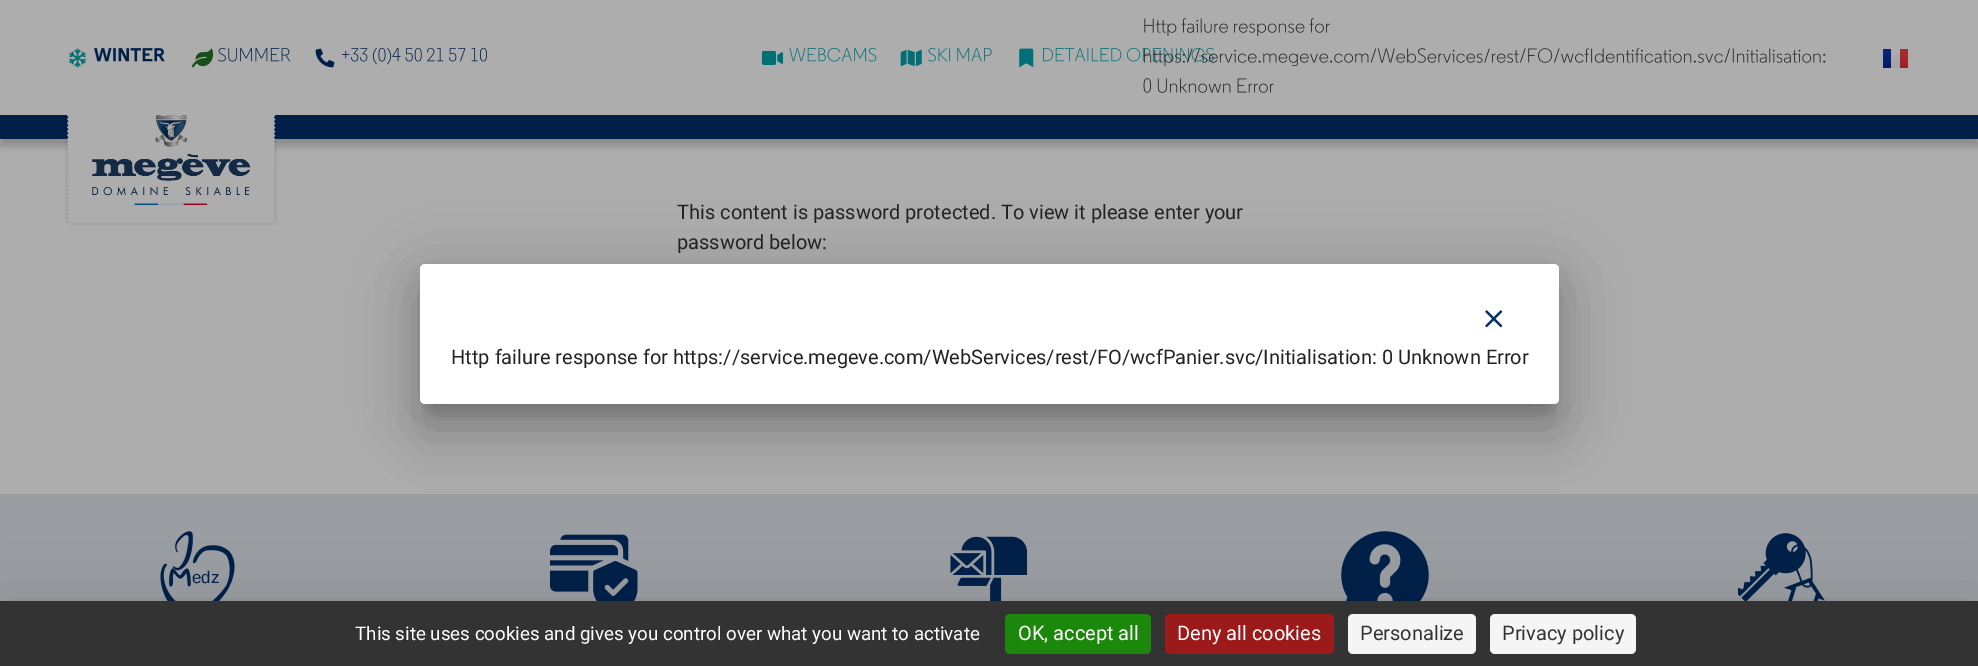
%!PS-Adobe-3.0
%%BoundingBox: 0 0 1978 666
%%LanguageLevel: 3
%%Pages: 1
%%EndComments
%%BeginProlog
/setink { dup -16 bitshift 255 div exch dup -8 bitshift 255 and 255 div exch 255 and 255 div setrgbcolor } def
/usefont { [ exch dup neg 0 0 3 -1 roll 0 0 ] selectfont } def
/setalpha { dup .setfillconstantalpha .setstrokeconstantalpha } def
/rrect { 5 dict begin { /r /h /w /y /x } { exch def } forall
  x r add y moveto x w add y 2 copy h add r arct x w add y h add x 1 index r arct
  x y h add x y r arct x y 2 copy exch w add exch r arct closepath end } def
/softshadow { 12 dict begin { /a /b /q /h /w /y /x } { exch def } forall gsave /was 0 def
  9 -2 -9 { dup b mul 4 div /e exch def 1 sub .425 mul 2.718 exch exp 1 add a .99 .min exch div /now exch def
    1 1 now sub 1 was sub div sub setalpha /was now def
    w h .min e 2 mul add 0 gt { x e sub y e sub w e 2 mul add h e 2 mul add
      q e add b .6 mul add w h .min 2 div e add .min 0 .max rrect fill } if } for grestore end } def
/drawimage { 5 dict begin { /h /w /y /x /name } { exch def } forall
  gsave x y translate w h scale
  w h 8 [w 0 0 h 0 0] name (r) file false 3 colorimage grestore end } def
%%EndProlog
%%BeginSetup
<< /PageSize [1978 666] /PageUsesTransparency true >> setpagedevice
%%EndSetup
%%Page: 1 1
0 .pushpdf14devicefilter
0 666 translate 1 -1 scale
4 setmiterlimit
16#ADADAD setink
0 0 1978 666 rectfill
16#000000 setink
0 64 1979 82 0 4 0.2 softshadow
16#ADADAD setink
0 58 1978 57 rectfill
(img1.raw) 69 48 17 20 drawimage
(img2.raw) 94 48 71 14 drawimage
(img3.raw) 192 48 22 20 drawimage
(img4.raw) 218 47 73 15 drawimage
(img5.raw) 315 48 20 20 drawimage
(img6.raw) 341 47 146 18 drawimage
(img7.raw) 761 50 23 15 drawimage
(img8.raw) 789 47 88 15 drawimage
(img9.raw) 900 49 22 18 drawimage
(img10.raw) 928 47 64 15 drawimage
(img11.raw) 1019 48 15 20 drawimage
(img12.raw) 1043 47 171 15 drawimage
(img13.raw) 1144 18 186 18 drawimage
(img14.raw) 1143 48 683 18 drawimage
(img15.raw) 1143 78 131 15 drawimage
gsave 1883 49 moveto 1891 49 lineto 1891 68 lineto 1883 68 lineto closepath clip newpath
<< /ShadingType 2 /ColorSpace /DeviceRGB /Coords [1887 49 1887 68] /Extend [true true] /Function << /FunctionType 2 /Domain [0 1] /C0 [0.043 0.141 0.498] /C1 [0.012 0.094 0.4] /N 1 >> >> shfill grestore
gsave 1891 54 moveto 1900 54 lineto 1900 68 lineto 1891 68 lineto closepath clip newpath
<< /ShadingType 2 /ColorSpace /DeviceRGB /Coords [1896 49 1896 68] /Extend [true true] /Function << /FunctionType 2 /Domain [0 1] /C0 [0.678 0.678 0.678] /C1 [0.639 0.639 0.639] /N 1 >> >> shfill grestore
gsave 1900 49 moveto 1908 49 lineto 1908 68 lineto 1900 68 lineto closepath clip newpath
<< /ShadingType 2 /ColorSpace /DeviceRGB /Coords [1902 49 1902 68] /Extend [true true] /Function << /FunctionType 2 /Domain [0 1] /C0 [0.651 0.188 0.22] /C1 [0.635 0.114 0.153] /N 1 >> >> shfill grestore
16#002049 setink
0 115 1978 24 rectfill
(img16.raw) 65 115 212 110 drawimage
/Roboto-Regular 20 usefont
16#232323 setink
677 219 moveto (This content is password protected. To view it please enter your) show
677 249 moveto (password below:) show
16#9A9EA2 setink
0 494 1978 107 rectfill
16#000000 setink
410 265 1159 160 15 29 0.12 softshadow
416 290 1147 148 9 24 0.14 softshadow
429 286 1121 123 0 9.5 0.2 softshadow
16#FFFFFF setink
420 264 1139 140 5 rrect fill
(img17.raw) 1485 310 18 18 drawimage
16#232323 setink
451 364 moveto (Http failure response for https://service.megeve.com/WebServices/rest/FO/wcfPanier.svc/Initialisation: 0 Unknown Error) show
(img18.raw) 160 531 75 70 drawimage
/LiberationSans-Regular 17 usefont
16#002049 setink
192 583 moveto (edz) show
(img19.raw) 550 534 88 67 drawimage
(img20.raw) 950 536 78 65 drawimage
(img21.raw) 1341 531 88 70 drawimage
(img22.raw) 1738 533 87 68 drawimage
16#000000 setink
0 626 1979 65 0 37.5 0.25 softshadow
16#333333 setink
0 601 1978 65 rectfill
/Roboto-Regular 18.75 usefont
16#FFFFFF setink
355 640 moveto (This site uses cookies and gives you control over what you want to activate) show
16#1B870B setink
1005 614 146 40 5 rrect fill
/Roboto-Regular 20 usefont
16#FFFFFF setink
1018 640 moveto (OK, accept all) show
16#9C1A1A setink
1165 614 169 40 5 rrect fill
16#FFFFFF setink
1177 640 moveto (Deny all cookies) show
16#F5F5F5 setink
1348 614 128 40 5 rrect fill
16#333333 setink
1360 640 moveto (Personalize) show
16#F5F5F5 setink
1490 614 146 40 5 rrect fill
16#333333 setink
1502 640 moveto (Privacy policy) show
.poppdf14devicefilter showpage
%%EOF
